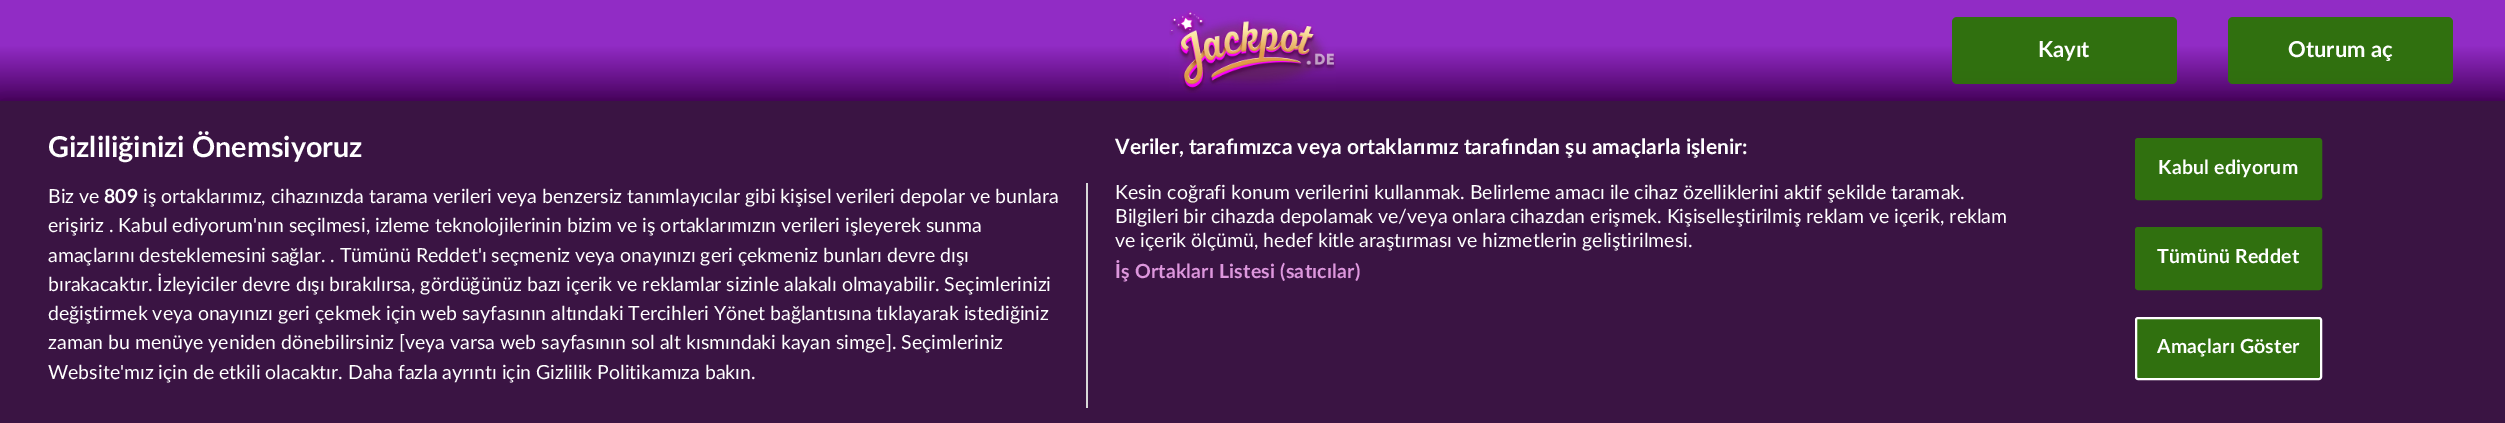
%!PS-Adobe-3.0
%%BoundingBox: 0 0 2505 423
%%LanguageLevel: 3
%%Pages: 1
%%EndComments
%%BeginProlog
/setink { dup -16 bitshift 255 div exch dup -8 bitshift 255 and 255 div exch 255 and 255 div setrgbcolor } def
/usefont { [ exch dup neg 0 0 3 -1 roll 0 0 ] selectfont } def
/setalpha { dup .setfillconstantalpha .setstrokeconstantalpha } def
/rrect { 5 dict begin { /r /h /w /y /x } { exch def } forall
  x r add y moveto x w add y 2 copy h add r arct x w add y h add x 1 index r arct
  x y h add x y r arct x y 2 copy exch w add exch r arct closepath end } def
/softshadow { 12 dict begin { /a /b /q /h /w /y /x } { exch def } forall gsave /was 0 def
  9 -2 -9 { dup b mul 4 div /e exch def 1 sub .425 mul 2.718 exch exp 1 add a .99 .min exch div /now exch def
    1 1 now sub 1 was sub div sub setalpha /was now def
    w h .min e 2 mul add 0 gt { x e sub y e sub w e 2 mul add h e 2 mul add
      q e add b .6 mul add w h .min 2 div e add .min 0 .max rrect fill } if } for grestore end } def
/drawimage { 5 dict begin { /h /w /y /x /name } { exch def } forall
  gsave x y translate w h scale
  w h 8 [w 0 0 h 0 0] name (r) file false 3 colorimage grestore end } def
%%EndProlog
%%BeginSetup
<< /PageSize [2505 423] /PageUsesTransparency true >> setpagedevice
%%EndSetup
%%Page: 1 1
0 .pushpdf14devicefilter
0 423 translate 1 -1 scale
4 setmiterlimit
16#FFFFFF setink
0 0 2505 423 rectfill
gsave 0 0 moveto 2505 0 lineto 2505 101 lineto 0 101 lineto closepath clip newpath
<< /ShadingType 2 /ColorSpace /DeviceRGB /Coords [1253 0 1253 101] /Extend [true true] /Function << /FunctionType 3 /Domain [0 1] /Functions [<< /FunctionType 2 /Domain [0 1] /C0 [0.569 0.173 0.773] /C1 [0.569 0.173 0.773] /N 1 >> << /FunctionType 2 /Domain [0 1] /C0 [0.569 0.173 0.773] /C1 [0.302 0.008 0.392] /N 1 >>] /Bounds [0.45] /Encode [0 1 0 1] >> >> shfill grestore
(img1.raw) 1169 10 167 83 drawimage
16#30700F setink
1952 17 225 67 5 rrect fill
/Lato-Bold 22 usefont
16#FFFFFF setink
2038 57 moveto (Kayıt) show
16#30700F setink
2228 17 225 67 5 rrect fill
16#FFFFFF setink
2288 57 moveto (Oturum aç) show
16#000000 setink
0 101 2505 322 0 13.5 0.2 softshadow
16#3A1443 setink
0 101 2505 322 rectfill
/Lato-Bold 28.75 usefont
16#FFFFFF setink
48 157 moveto (Gizliliğinizi Önemsiyoruz) show
/Lato-Bold 21.1 usefont
1115 154 moveto (Veriler, tarafımızca veya ortaklarımız tarafından şu amaçlarla işlenir:) show
/Lato-Regular 19.5 usefont
[
    [(Kesin coğrafi konum verilerini kullanmak. Belirleme amacı ile cihaz özelliklerini aktif şekilde taramak.) 1115 199]
    [(Bilgileri bir cihazda depolamak ve/veya onlara cihazdan erişmek. Kişiselleştirilmiş reklam ve içerik, reklam) 1115 223]
    [(ve içerik ölçümü, hedef kitle araştırması ve hizmetlerin geliştirilmesi.) 1115 247]
] { aload pop moveto show } forall
/Lato-Bold 19.5 usefont
16#DD97DD setink
1115 278 moveto 0.2 0 (İş Ortakları Listesi \(satıcılar\)) ashow
16#D8D8D8 setink
1086 183 2 225 rectfill
/Lato-Regular 19.5 usefont
16#FFFFFF setink
48 203 moveto (Biz ve) show
/Lato-Bold 19.5 usefont
104 203 moveto (809) show
/Lato-Regular 19.5 usefont
[
    [(iş ortaklarımız, cihazınızda tarama verileri veya benzersiz tanımlayıcılar gibi kişisel verileri depolar ve bunlara) 143 203]
    [(erişiriz . Kabul ediyorum'nın seçilmesi, izleme teknolojilerinin bizim ve iş ortaklarımızın verileri işleyerek sunma) 48 232]
    [(amaçlarını desteklemesini sağlar. . Tümünü Reddet'ı seçmeniz veya onayınızı geri çekmeniz bunları devre dışı) 48 262]
    [(bırakacaktır. İzleyiciler devre dışı bırakılırsa, gördüğünüz bazı içerik ve reklamlar sizinle alakalı olmayabilir. Seçimlerinizi) 48 291]
    [(değiştirmek veya onayınızı geri çekmek için web sayfasının altındaki Tercihleri Yönet bağlantısına tıklayarak istediğiniz) 48 320]
    [(zaman bu menüye yeniden dönebilirsiniz [veya varsa web sayfasının sol alt kısmındaki kayan simge]. Seçimleriniz) 48 349]
    [(Website'mız için de etkili olacaktır. Daha fazla ayrıntı için Gizlilik Politikamıza bakın.) 48 379]
] { aload pop moveto show } forall
16#30700F setink
2136 139 185 60 2 rrect gsave fill grestore
2 setlinewidth
stroke
/Lato-Bold 19.5 usefont
16#FFFFFF setink
2158 174 moveto 0.2 0 (Kabul ediyorum) ashow
16#30700F setink
2136 228 185 61 2 rrect gsave fill grestore
stroke
16#FFFFFF setink
2157 263 moveto 0.2 0 (Tümünü Reddet) ashow
16#30700F setink
2136 318 185 61 2 rrect gsave fill grestore
16#FFFFFF setink
stroke
2157 353 moveto 0.2 0 (Amaçları Göster) ashow
.poppdf14devicefilter showpage
%%EOF
